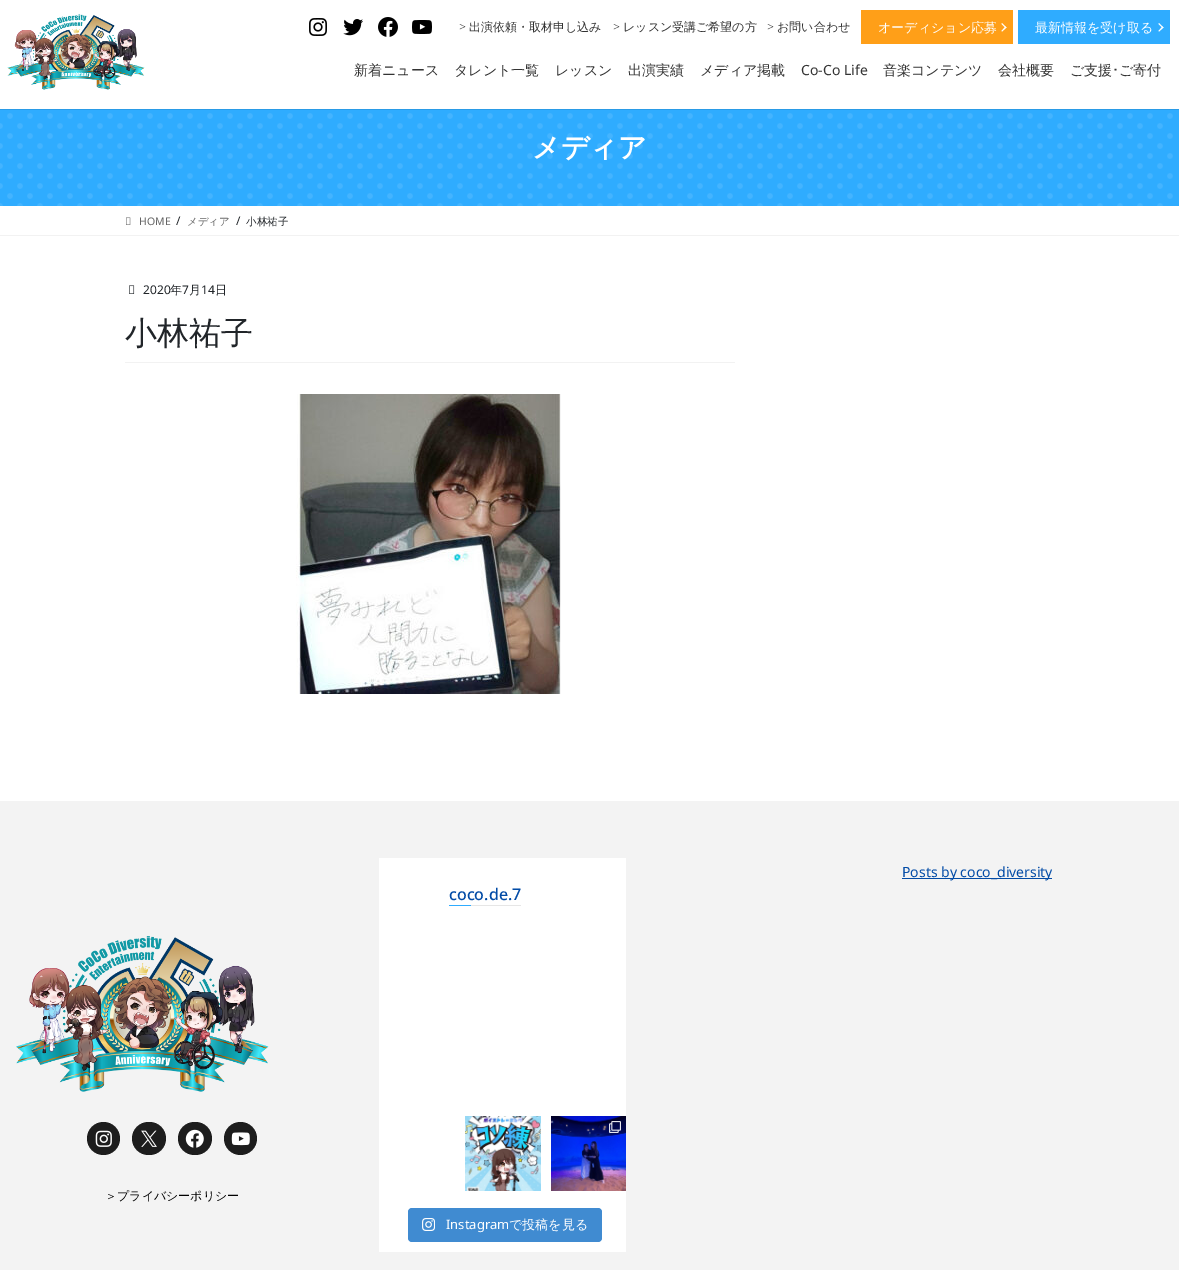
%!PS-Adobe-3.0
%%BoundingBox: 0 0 1179 1270
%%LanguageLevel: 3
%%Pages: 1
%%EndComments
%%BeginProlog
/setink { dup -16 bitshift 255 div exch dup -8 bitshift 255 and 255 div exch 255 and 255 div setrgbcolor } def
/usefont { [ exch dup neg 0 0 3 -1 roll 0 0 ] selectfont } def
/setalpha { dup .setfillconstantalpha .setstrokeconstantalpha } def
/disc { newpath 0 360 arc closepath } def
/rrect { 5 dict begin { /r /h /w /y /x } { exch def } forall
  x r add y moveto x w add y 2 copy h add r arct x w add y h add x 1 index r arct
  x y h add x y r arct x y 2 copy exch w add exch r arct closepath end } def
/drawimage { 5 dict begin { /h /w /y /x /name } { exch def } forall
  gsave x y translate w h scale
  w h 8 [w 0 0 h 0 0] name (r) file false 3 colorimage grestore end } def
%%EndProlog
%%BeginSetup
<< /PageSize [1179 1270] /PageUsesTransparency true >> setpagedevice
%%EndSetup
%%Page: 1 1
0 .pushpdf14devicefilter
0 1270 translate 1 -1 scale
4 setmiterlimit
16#FFFFFF setink
0 0 1179 1270 rectfill
16#2A9BE6 setink
0 109 1179 1 rectfill
(img1.raw) 7 14 138 76 drawimage
(img2.raw) 309 18 18 18 drawimage
(img3.raw) 343 19 20 17 drawimage
(img4.raw) 378 17 20 20 drawimage
(img5.raw) 412 20 20 14 drawimage
/NotoSans-Light 12 usefont
16#333333 setink
459 31 moveto (>) show
/WenQuanYiZenHei-Medium 12 usefont
469 31 moveto (出演依頼・取材申し込み) show
/NotoSans-Light 12 usefont
613 31 moveto (>) show
/WenQuanYiZenHei-Medium 12 usefont
623 31 moveto (レッスン受講ご希望の方) show
/NotoSans-Light 12 usefont
767 31 moveto (>) show
/WenQuanYiZenHei-Medium 12 usefont
777 31 moveto (お問い合わせ) show
16#FF9F18 setink
861 10 152 34 rectfill
/WenQuanYiZenHei-Medium 13 usefont
16#FFFFFF setink
878 32 moveto (オーディション応募) show
1002 23 moveto 1006.5 27.5 lineto 1005.5 28 lineto 1001.5 24 lineto closepath fill
1005.5 26.5 moveto 1006.5 27.5 lineto 1002 31.5 lineto 1001.5 31 lineto closepath fill
16#2FACFF setink
1018 10 152 34 rectfill
16#FFFFFF setink
1035 32 moveto (最新情報を受け取る) show
1159 23 moveto 1163.5 27.5 lineto 1162.5 28 lineto 1158.5 24 lineto closepath fill
1162.5 26.5 moveto 1163.5 27.5 lineto 1159 31.5 lineto 1158.5 31 lineto closepath fill
/WenQuanYiZenHei-Medium 14 usefont
16#333333 setink
[
    [(新着ニュース) 354 75]
    [(タレント一覧) 454 75]
    [(レッスン) 555 75]
    [(出演実績) 628 75]
    [(メディア掲載) 700 75]
] { aload pop moveto show } forall
/NotoSans-Regular 14 usefont
801 75 moveto (Co-Co Life) show
/WenQuanYiZenHei-Medium 14 usefont
[
    [(音楽コンテンツ) 883 75]
    [(会社概要) 998 75]
    [(ご支援) 1070 75]
] { aload pop moveto show } forall
/IPAPGothic-Regular 14 usefont
1112 75 moveto (･) show
/WenQuanYiZenHei-Medium 14 usefont
1119 75 moveto (ご寄付) show
16#2FACFF setink
0 110 1179 96 rectfill
16#44B4FF setink
5.7 setlinewidth
1 setlinecap
[0 20] 0 setdash
0 126 moveto 1160.2 126 lineto stroke
0 146 moveto 1160.2 146 lineto stroke
0 166 moveto 1160.2 166 lineto stroke
0 186 moveto 1160.2 186 lineto stroke
0.1 setalpha
16#FFFFFF setink
0 206 moveto 1160.2 206 lineto stroke
1 setalpha
16#44B4FF setink
10 116 moveto 1170.2 116 lineto stroke
10 136 moveto 1170.2 136 lineto stroke
10 156 moveto 1170.2 156 lineto stroke
10 176 moveto 1170.2 176 lineto stroke
10 196 moveto 1170.2 196 lineto stroke
/WenQuanYiZenHei-Bold 28 usefont
16#FFFFFF setink
532 157 moveto (メディア) show
16#F2F2F2 setink
0 235 1179 1 rectfill
(img6.raw) 126 217 5 8 drawimage
/NotoSans-Regular 10.5 usefont
16#666666 setink
139 225 moveto (HOME) show
/NotoSans-Regular 12 usefont
16#212529 setink
176 225 moveto (/) show
/WenQuanYiZenHei-Medium 10.5 usefont
16#666666 setink
187 225 moveto (メディア) show
/NotoSans-Regular 12 usefont
16#212529 setink
236 225 moveto (/) show
/WenQuanYiZenHei-Medium 10.5 usefont
246 225 moveto (小林祐子) show
16#F2F2F2 setink
125 362 610 1 rectfill
(img7.raw) 129 285 6 9 drawimage
/NotoSans-Regular 12 usefont
16#212529 setink
143 294 moveto (2020) show
/WenQuanYiZenHei-Medium 12 usefont
170 294 moveto (年) show
/NotoSans-Regular 12 usefont
182 294 moveto (7) show
/WenQuanYiZenHei-Medium 12 usefont
189 294 moveto (月) show
/NotoSans-Regular 12 usefont
201 294 moveto (14) show
/WenQuanYiZenHei-Medium 12 usefont
215 294 moveto (日) show
/WenQuanYiZenHei-Medium 32 usefont
125 344 moveto (小林祐子) show
(img8.raw) 296 394 265 300 drawimage
16#F3F3F3 setink
0 801 1179 469 rectfill
(img9.raw) 16 936 253 156 drawimage
16#1D1D1D setink
103.5 1138.5 16.5 disc fill
(img10.raw) 95 1130 17 17 drawimage
132 1122 34 33 16.5 rrect fill
(img11.raw) 141 1130 16 17 drawimage
178 1122 34 33 16.5 rrect fill
(img12.raw) 185 1129 19 19 drawimage
240.5 1138.5 16.5 disc fill
(img13.raw) 231 1132 19 14 drawimage
/WenQuanYiZenHei-Medium 12 usefont
16#000000 setink
105 1200 moveto (＞プライバシーポリシー) show
16#024BA6 setink
902 878 150 1 rectfill
/NotoSans-Regular 14 usefont
902 877 moveto (Posts by coco_diversity) show
16#FFFFFF setink
379 858 247 394 rectfill
16#E6E6E6 setink
471 905 50 1 rectfill
/NotoSans-Medium 16 usefont
16#024BA6 setink
449 900 moveto (coco.de.7) show
16#2FACFF setink
449 905 22 1 rectfill
(img14.raw) 465 1116 76 75 drawimage
(img15.raw) 551 1116 75 75 drawimage
(img16.raw) 609 1121 12 12 drawimage
16#408BD1 setink
408 1208 194 34 4 rrect fill
(img17.raw) 422 1218 13 13 drawimage
/NotoSans-Regular 13 usefont
16#FFFFFF setink
446 1229 moveto (Instagram) show
/WenQuanYiZenHei-Medium 13 usefont
509 1229 moveto (で投稿を見る) show
.poppdf14devicefilter showpage
%%EOF
